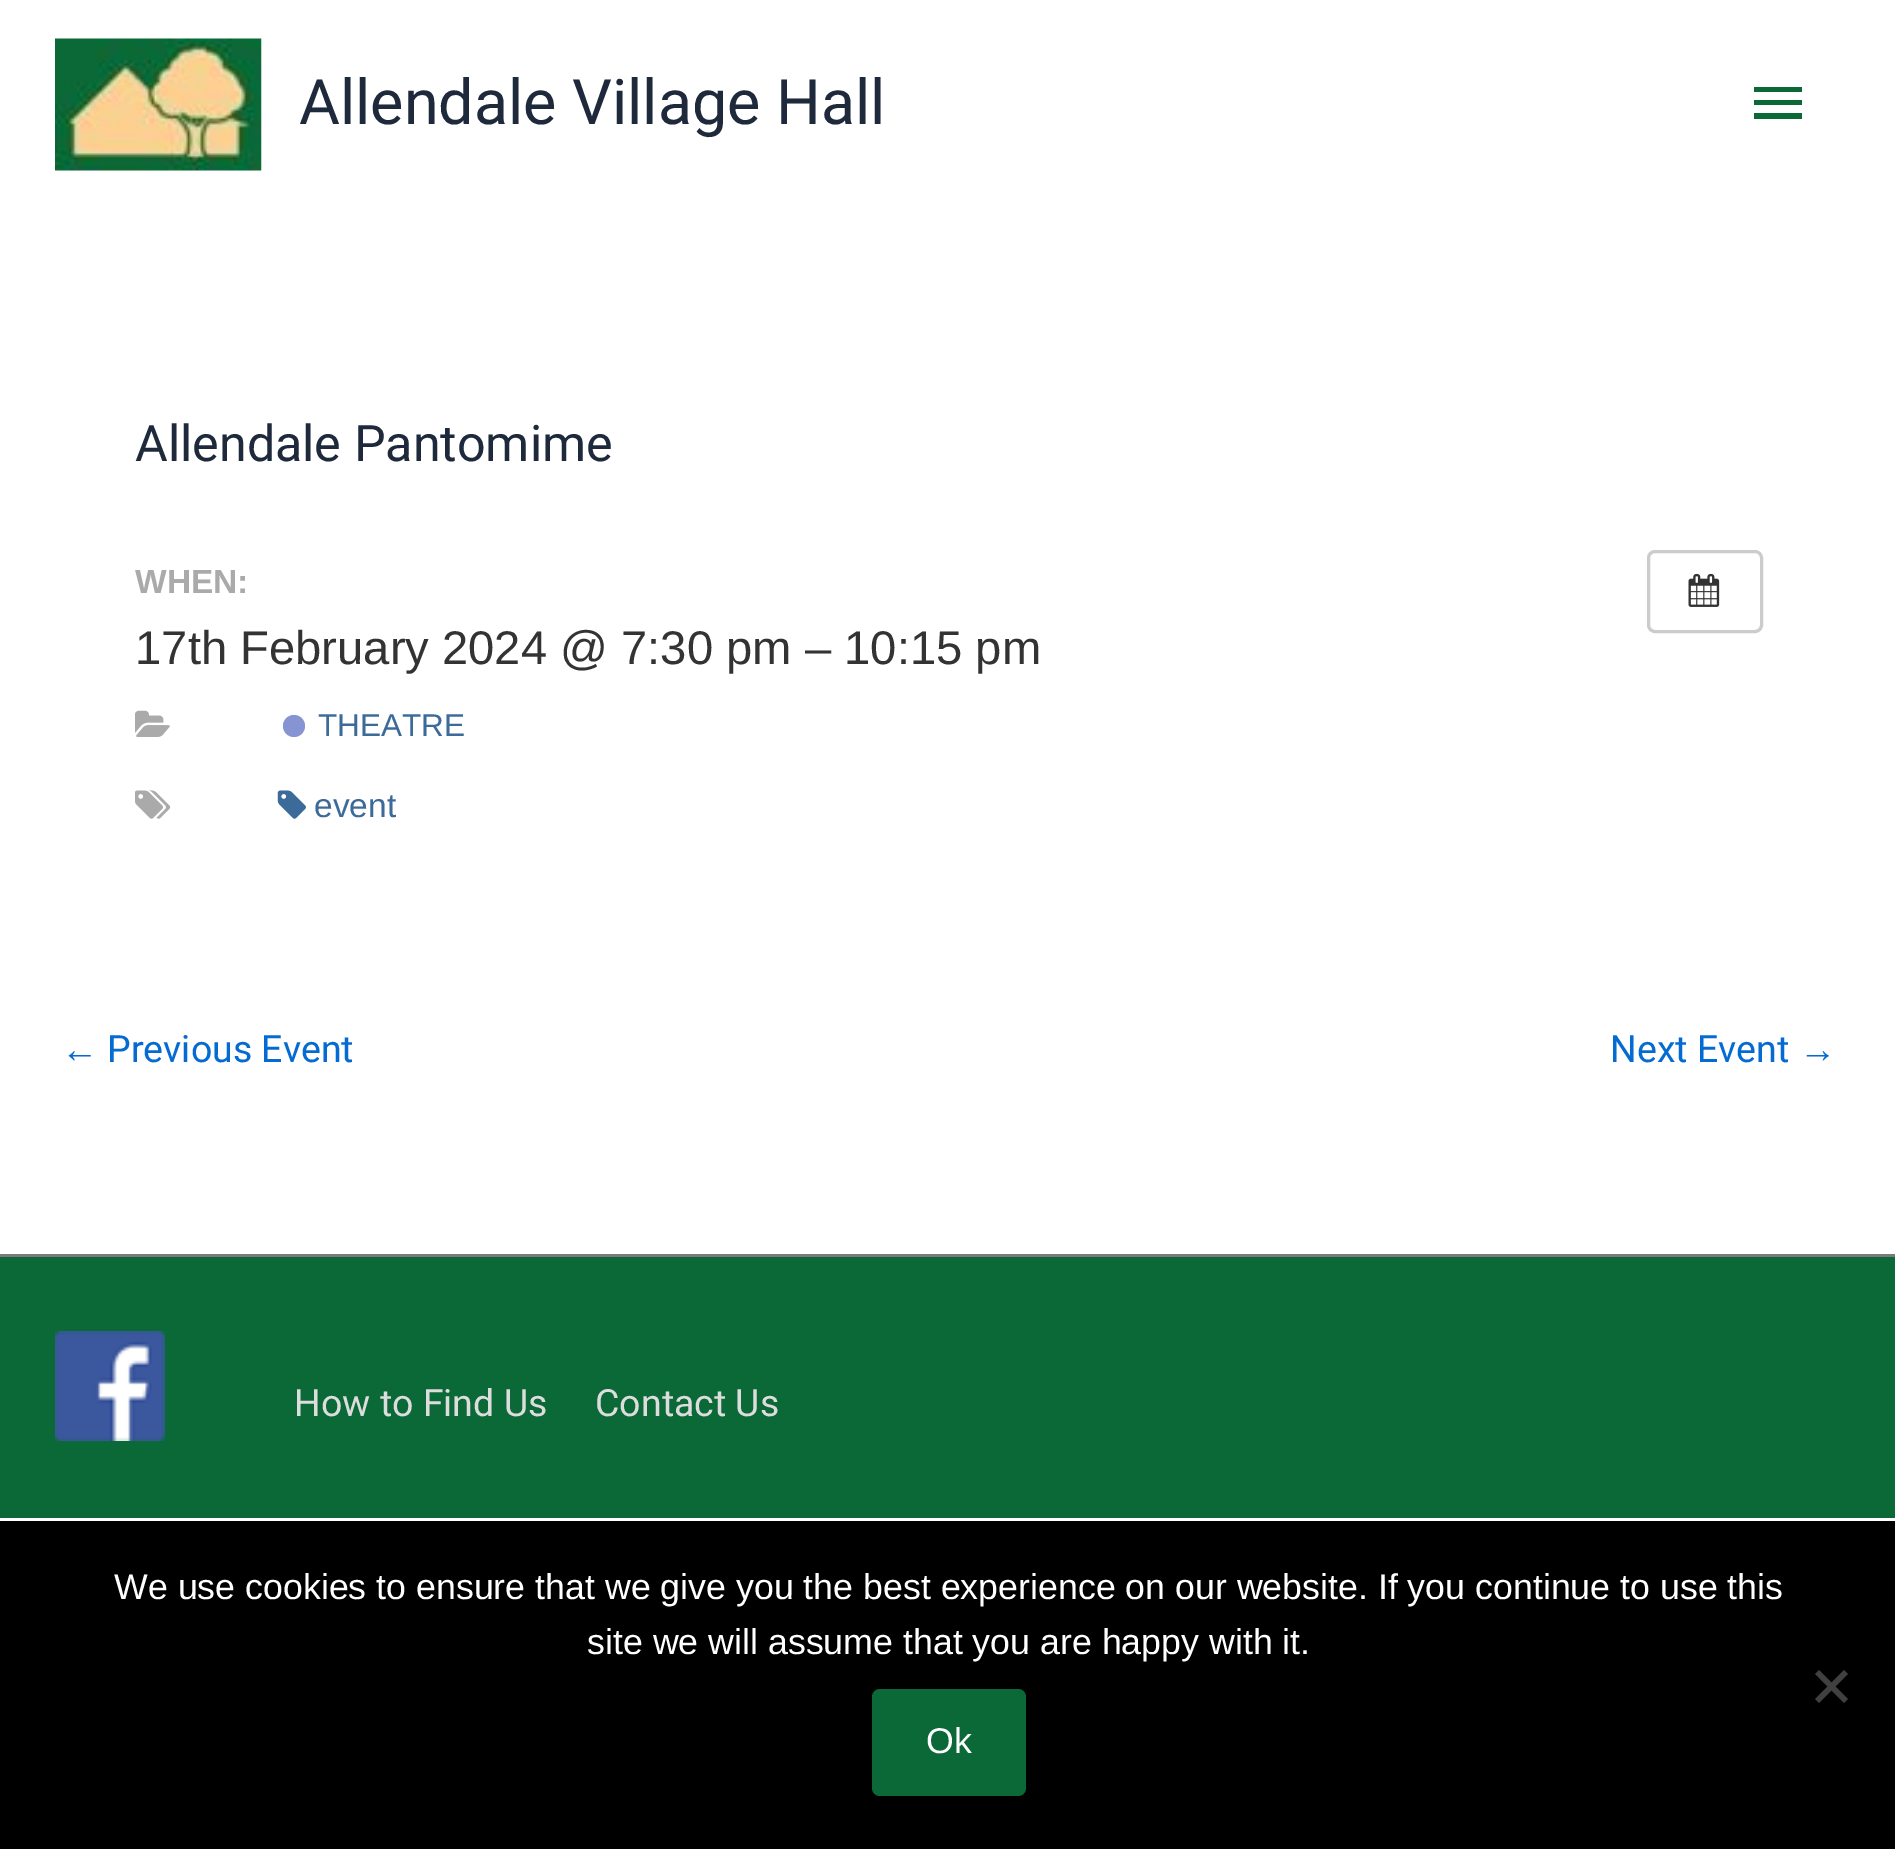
%!PS-Adobe-3.0
%%BoundingBox: 0 0 1895 1849
%%LanguageLevel: 3
%%Pages: 1
%%EndComments
%%BeginProlog
/setink { dup -16 bitshift 255 div exch dup -8 bitshift 255 and 255 div exch 255 and 255 div setrgbcolor } def
/usefont { [ exch dup neg 0 0 3 -1 roll 0 0 ] selectfont } def
/disc { newpath 0 360 arc closepath } def
/rrect { 5 dict begin { /r /h /w /y /x } { exch def } forall
  x r add y moveto x w add y 2 copy h add r arct x w add y h add x 1 index r arct
  x y h add x y r arct x y 2 copy exch w add exch r arct closepath end } def
/drawimage { 5 dict begin { /h /w /y /x /name } { exch def } forall
  gsave x y translate w h scale
  w h 8 [w 0 0 h 0 0] name (r) file false 3 colorimage grestore end } def
%%EndProlog
%%BeginSetup
<< /PageSize [1895 1849] >> setpagedevice
%%EndSetup
%%Page: 1 1
0 1849 translate 1 -1 scale
4 setmiterlimit
16#FFFFFF setink
0 0 1895 1849 rectfill
(img1.raw) 55 38 207 133 drawimage
/Roboto-Regular 62.75 usefont
16#1E293B setink
299 124 moveto (Allendale Village Hall) show
16#0B6937 setink
1754 87 moveto 1802 87 lineto 1802 92 lineto 1754 92 lineto closepath 1754 105 moveto 1754 100 lineto 1802 100 lineto 1802 105 lineto closepath 1754 119 moveto 1754 113 lineto 1802 113 lineto 1802 119 lineto closepath fill
/Roboto-Regular 50.25 usefont
16#1E293B setink
135 461 moveto (Allendale Pantomime) show
/LiberationSans-Bold 33.5 usefont
16#AAAAAA setink
135 593 moveto (WHEN:) show
/LiberationSans-Regular 47.2 usefont
16#333333 setink
135 664 moveto (17th February 2024 @ 7:30 pm – 10:15 pm) show
(img2.raw) 135 710 35 27 drawimage
16#8694D4 setink
294 726 11 disc fill
/LiberationSans-Regular 31.5 usefont
16#3D6B99 setink
318 736 moveto (THEATRE) show
(img3.raw) 135 790 36 29 drawimage
(img4.raw) 277 790 29 29 drawimage
/LiberationSans-Regular 33.5 usefont
314 817 moveto (event) show
16#CCCCCC setink
3 setlinewidth
1648.5 551.5 113 80 6.5 rrect stroke
(img5.raw) 1688 573 32 34 drawimage
/LiberationSans-Regular 37.5 usefont
16#046BD2 setink
61 1062 moveto (←) show
/Roboto-Regular 37.5 usefont
107 1062 moveto (Previous Event) show
1610 1062 moveto (Next Event) show
/LiberationSans-Regular 37.5 usefont
1799 1062 moveto (→) show
16#7A7A7A setink
0 1254 1895 3 rectfill
16#0B6937 setink
0 1257 1895 261 rectfill
(img6.raw) 55 1331 110 110 drawimage
/Roboto-Regular 37.5 usefont
16#DDDDDD setink
294 1416 moveto (How to Find Us) show
595 1416 moveto (Contact Us) show
16#000000 setink
0 1521 1895 328 rectfill
/LiberationSans-Regular 35.75 usefont
16#FFFFFF setink
114 1599 moveto (We use cookies to ensure that we give you the best experience on our website. If you continue to use this) show
587 1654 moveto (site we will assume that you are happy with it.) show
16#404040 setink
1844 1670 moveto 1848 1674 lineto 1819 1703 lineto 1815 1699 lineto closepath fill
1815 1674 moveto 1819 1670 lineto 1848 1699 lineto 1844 1703 lineto closepath fill
16#0B6937 setink
872 1689 154 107 8 rrect fill
16#FFFFFF setink
926 1753 moveto (Ok) show
showpage
%%EOF
